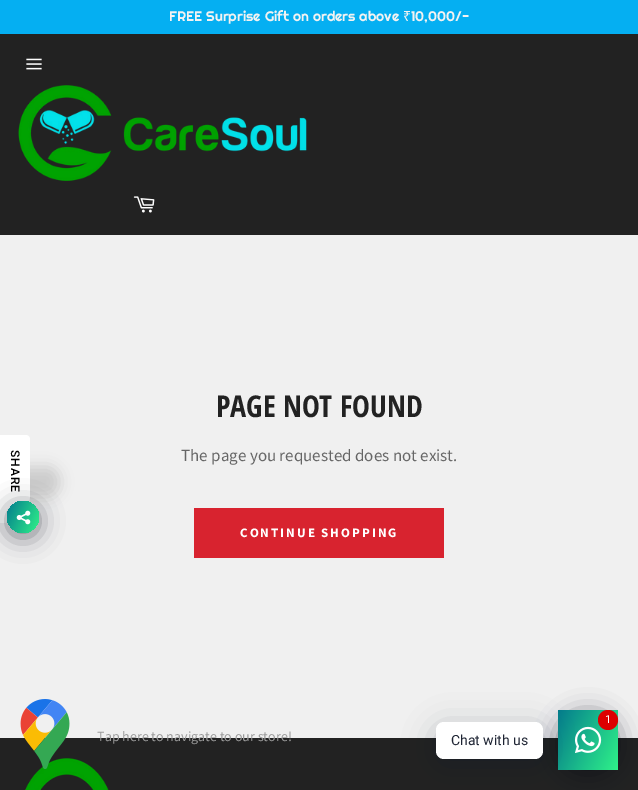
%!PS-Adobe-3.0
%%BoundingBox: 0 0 638 790
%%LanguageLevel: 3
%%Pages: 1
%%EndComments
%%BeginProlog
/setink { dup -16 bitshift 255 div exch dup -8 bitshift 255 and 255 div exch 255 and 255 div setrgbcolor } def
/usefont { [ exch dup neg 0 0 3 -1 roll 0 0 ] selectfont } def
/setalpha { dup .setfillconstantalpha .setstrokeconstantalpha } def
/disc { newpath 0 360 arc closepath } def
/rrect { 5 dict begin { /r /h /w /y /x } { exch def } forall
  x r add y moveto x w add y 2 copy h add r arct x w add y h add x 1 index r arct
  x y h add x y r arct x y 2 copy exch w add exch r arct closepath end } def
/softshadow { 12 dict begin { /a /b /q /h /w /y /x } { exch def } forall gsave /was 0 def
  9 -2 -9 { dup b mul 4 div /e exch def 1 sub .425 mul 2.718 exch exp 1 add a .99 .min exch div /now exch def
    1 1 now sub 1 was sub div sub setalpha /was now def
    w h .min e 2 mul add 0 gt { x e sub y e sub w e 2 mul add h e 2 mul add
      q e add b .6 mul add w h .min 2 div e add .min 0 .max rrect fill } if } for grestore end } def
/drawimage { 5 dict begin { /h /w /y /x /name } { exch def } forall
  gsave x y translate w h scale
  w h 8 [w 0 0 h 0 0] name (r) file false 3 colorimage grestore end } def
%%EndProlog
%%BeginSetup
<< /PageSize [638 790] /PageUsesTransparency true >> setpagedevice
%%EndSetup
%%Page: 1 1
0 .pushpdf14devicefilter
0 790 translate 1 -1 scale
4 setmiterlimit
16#F0F0F0 setink
0 0 638 790 rectfill
16#222222 setink
0 34 638 201 rectfill
16#05AFF2 setink
0 0 638 34 rectfill
/Righteous-Regular 14 usefont
16#F2F2F2 setink
169 21 moveto (FREE Surprise Gift on orders above) show
/NotoSans-Regular 14 usefont
403 21 moveto (₹) show
/Righteous-Regular 14 usefont
411 21 moveto (10,000/-) show
(img1.raw) 26 58 16 12 drawimage
(img2.raw) 18 85 289 96 drawimage
(img3.raw) 133 196 22 17 drawimage
/OpenSansCondensed-Bold 30 usefont
16#222222 setink
216 417 moveto (PAGE NOT FOUND) show
/SourceSansPro-Regular 17 usefont
16#666666 setink
181 461 moveto (The page you requested does not exist.) show
16#D8232F setink
194 508 250 50 rectfill
/SourceSansPro-Bold 13 usefont
16#FFFFFF setink
240 537 moveto 2 0 (CONTINUE SHOPPING) ashow
16#222222 setink
0 738 638 52 rectfill
(img4.raw) 25 758 84 32 drawimage
16#000000 setink
-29 467 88 30 28 7 0.15 softshadow
16#FFFFFF setink
0 523 moveto 0 435 lineto 26 435 lineto 28 435 30 437 30 439 curveto 30 495 lineto 30 510 17 523 2 523 curveto closepath fill
/Roboto-Medium 12 usefont
16#000000 setink
gsave 11 450 translate 90 rotate 0 0 moveto 1 0 (SHARE) ashow grestore
16#020610 setink
7 505 32 32 16 12 0.5 softshadow
gsave 23 517 16 disc clip newpath
<< /ShadingType 2 /ColorSpace /DeviceRGB /Coords [3.7 508 42 526] /Extend [true true] /Function << /FunctionType 2 /Domain [0 1] /C0 [0.016 0.486 0.553] /C1 [0.184 0.949 0.537] /N 1 >> >> shfill grestore
(img5.raw) 16 510 15 15 drawimage
558 714 60 60 30 12 0.5 softshadow
gsave 558 710 moveto 618 710 lineto 618 770 lineto 558 770 lineto closepath clip newpath
<< /ShadingType 2 /ColorSpace /DeviceRGB /Coords [552 723 624 757] /Extend [true true] /Function << /FunctionType 2 /Domain [0 1] /C0 [0.016 0.486 0.553] /C1 [0.184 0.949 0.537] /N 1 >> >> shfill grestore
16#00122E setink
436 728 107 37 8 16 0.24 softshadow
(img6.raw) 575 726 27 27 drawimage
16#DD0000 setink
608 720 10 disc fill
/Roboto-Regular 11 usefont
16#FFFFFF setink
605 723 moveto (1) show
436 722 107 37 8 rrect fill
/Roboto-Regular 14 usefont
16#1E2433 setink
451 745 moveto (Chat with us) show
(img7.raw) 20 699 50 70 drawimage
/SourceSansPro-Regular 14 usefont
16#9A9A9A setink
97 741 moveto (Tap here to navigate to our store!) show
.poppdf14devicefilter showpage
%%EOF
